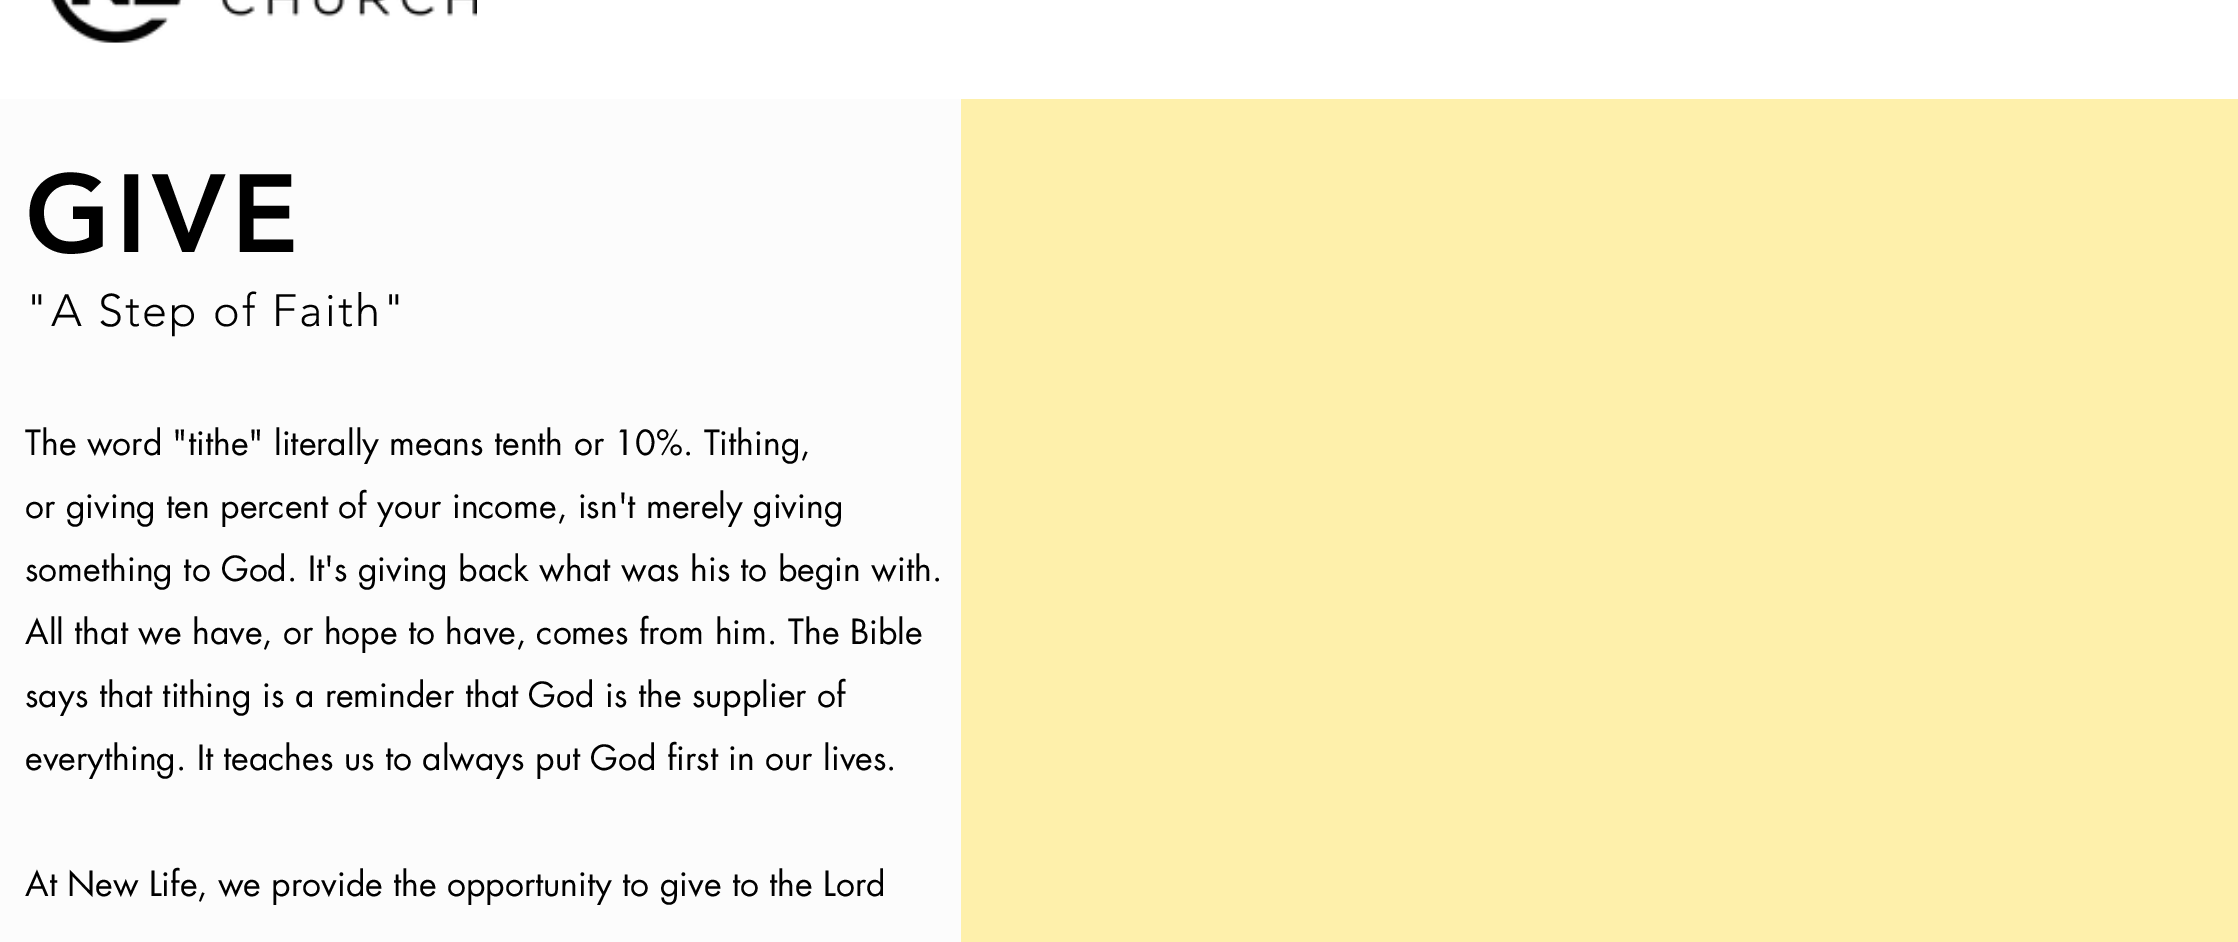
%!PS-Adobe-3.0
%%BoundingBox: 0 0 2238 942
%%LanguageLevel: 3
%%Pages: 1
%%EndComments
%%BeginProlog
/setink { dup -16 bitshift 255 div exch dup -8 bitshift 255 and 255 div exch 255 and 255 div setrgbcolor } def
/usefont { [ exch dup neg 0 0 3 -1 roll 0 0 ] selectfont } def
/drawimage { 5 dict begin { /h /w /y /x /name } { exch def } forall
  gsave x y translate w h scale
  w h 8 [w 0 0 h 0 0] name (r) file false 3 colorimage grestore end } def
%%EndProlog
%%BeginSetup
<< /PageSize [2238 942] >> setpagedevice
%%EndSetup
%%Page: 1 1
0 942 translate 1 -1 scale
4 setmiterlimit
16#FFFFFF setink
0 0 2238 942 rectfill
(img1.raw) 51 0 426 43 drawimage
16#FCFCFC setink
0 99 961 843 rectfill
/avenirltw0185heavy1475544-Black 110 usefont
16#000000 setink
25 252 moveto 5.5 0 (GIVE) ashow
/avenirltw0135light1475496-Light 45 usefont
25 326 moveto 2.25 0 ("A Step of Faith") ashow
/futura-Regular 33.75 usefont
[
    [(The word "tithe" literally means tenth or 10%. Tithing,) 25 455]
    [(or giving ten percent of your income, isn't merely giving) 25 518]
    [(something to God. It's giving back what was his to begin with.) 25 581]
    [(All that we have, or hope to have, comes from him. The Bible) 25 644]
    [(says that tithing is a reminder that God is the supplier of) 25 707]
    [(everything. It teaches us to always put God first in our lives.) 25 770]
    [(At New Life, we provide the opportunity to give to the Lord) 25 896]
] { aload pop moveto show } forall
16#FEF0AB setink
961 99 1277 843 rectfill
showpage
%%EOF
